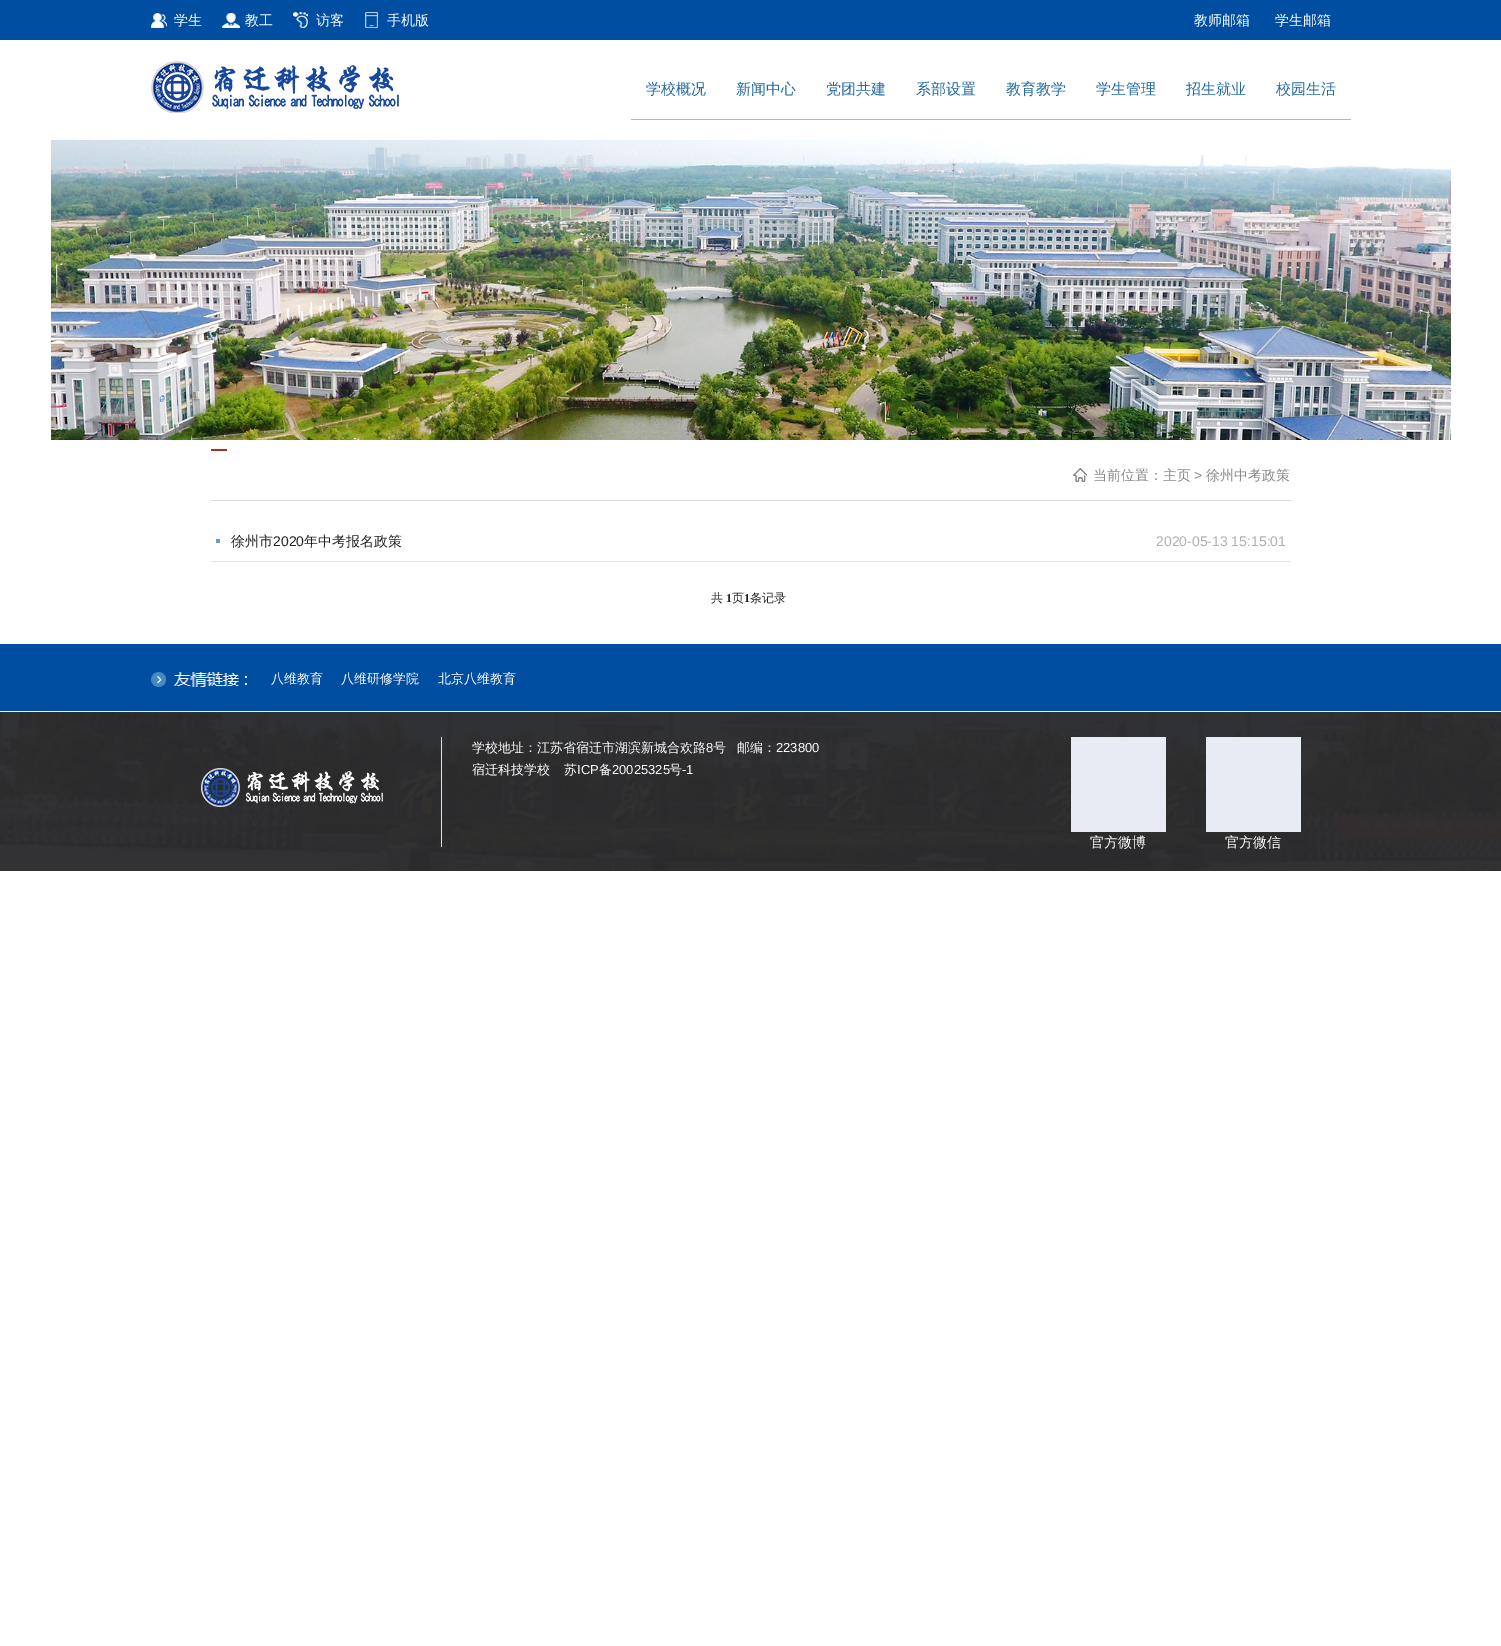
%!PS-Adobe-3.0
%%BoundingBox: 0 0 1501 1646
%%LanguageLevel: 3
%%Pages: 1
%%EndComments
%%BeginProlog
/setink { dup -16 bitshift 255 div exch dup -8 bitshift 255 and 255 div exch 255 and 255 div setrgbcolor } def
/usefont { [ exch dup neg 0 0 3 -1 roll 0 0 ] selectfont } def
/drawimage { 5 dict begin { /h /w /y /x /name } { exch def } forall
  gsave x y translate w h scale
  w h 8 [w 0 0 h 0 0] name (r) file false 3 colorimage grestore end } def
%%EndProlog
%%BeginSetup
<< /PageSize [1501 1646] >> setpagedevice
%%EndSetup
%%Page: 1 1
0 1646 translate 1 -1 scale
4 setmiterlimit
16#FFFFFF setink
0 0 1501 1646 rectfill
16#004EA2 setink
0 0 1501 40 rectfill
(img1.raw) 151 13 16 15 drawimage
/WenQuanYiZenHei-Medium 14 usefont
16#FFFFFF setink
174 25 moveto (学生) show
(img2.raw) 222 13 18 15 drawimage
245 25 moveto (教工) show
(img3.raw) 293 12 15 16 drawimage
316 25 moveto (访客) show
(img4.raw) 365 12 13 16 drawimage
[
    [(手机版) 387 25]
    [(教师邮箱) 1194 25]
    [(学生邮箱) 1275 25]
] { aload pop moveto show } forall
(img5.raw) 151 61 248 52 drawimage
16#8CC1ED setink
631 119 720 1 rectfill
/WenQuanYiZenHei-Medium 15 usefont
16#2269A3 setink
[
    [(学校概况) 646 94]
    [(新闻中心) 736 94]
    [(党团共建) 826 94]
    [(系部设置) 916 94]
    [(教育教学) 1006 94]
    [(学生管理) 1096 94]
    [(招生就业) 1186 94]
    [(校园生活) 1276 94]
] { aload pop moveto show } forall
(img6.raw) 51 140 1400 300 drawimage
16#D9D9D9 setink
211 500 1080 1 rectfill
16#B22923 setink
211 449 16 2 rectfill
(img7.raw) 1073 468 14 14 drawimage
/WenQuanYiZenHei-Medium 14 usefont
16#888888 setink
1093 480 moveto (当前位置：主页) show
/LiberationSans-Regular 14 usefont
1194 480 moveto (>) show
/WenQuanYiZenHei-Medium 14 usefont
1206 480 moveto (徐州中考政策) show
16#6C99C7 setink
216 539 4 4 rectfill
16#E7E7E7 setink
211 561 1080 1 rectfill
16#222222 setink
231 546 moveto (徐州市) show
/LiberationSans-Regular 14 usefont
273 546 moveto (2020) show
/WenQuanYiZenHei-Medium 14 usefont
304 546 moveto (年中考报名政策) show
/LiberationSans-Regular 14 usefont
16#B0B0B0 setink
1156 546 moveto (2020-05-13 15:15:01) show
/WenQuanYiZenHei-Medium 12 usefont
16#222222 setink
711 602 moveto (共) show
/LiberationSerif-Bold 12 usefont
726 602 moveto (1) show
/WenQuanYiZenHei-Medium 12 usefont
732 602 moveto (页) show
/LiberationSerif-Bold 12 usefont
744 602 moveto (1) show
/WenQuanYiZenHei-Medium 12 usefont
750 602 moveto (条记录) show
(img8.raw) 0 644 1501 227 drawimage
(img9.raw) 151 672 96 15 drawimage
/WenQuanYiZenHei-Medium 13 usefont
16#FFFFFF setink
[
    [(八维教育) 271 683]
    [(八维研修学院) 341 683]
    [(北京八维教育) 438 683]
] { aload pop moveto show } forall
16#D2E7F8 setink
441 737 1 110 rectfill
(img10.raw) 201 768 182 39 drawimage
16#FFFFFF setink
472 752 moveto (学校地址：江苏省宿迁市湖滨新城合欢路) show
/LiberationSans-Regular 13 usefont
706 752 moveto (8) show
/WenQuanYiZenHei-Medium 13 usefont
713 752 moveto (号) show
737 752 moveto (邮编：) show
/LiberationSans-Regular 13 usefont
776 752 moveto (223800) show
/WenQuanYiZenHei-Medium 13 usefont
472 774 moveto (宿迁科技学校) show
564 774 moveto (苏) show
/LiberationSans-Regular 13 usefont
577 774 moveto (ICP) show
/WenQuanYiZenHei-Medium 13 usefont
599 774 moveto (备) show
/LiberationSans-Regular 13 usefont
612 774 moveto (20025325) show
/WenQuanYiZenHei-Medium 13 usefont
669 774 moveto (号) show
/LiberationSans-Regular 13 usefont
682 774 moveto (-1) show
16#E6EBF4 setink
1071 737 95 95 rectfill
/WenQuanYiZenHei-Medium 14 usefont
16#FFFFFF setink
1090 847 moveto (官方微博) show
16#E6EBF4 setink
1206 737 95 95 rectfill
16#FFFFFF setink
1225 847 moveto (官方微信) show
showpage
%%EOF
